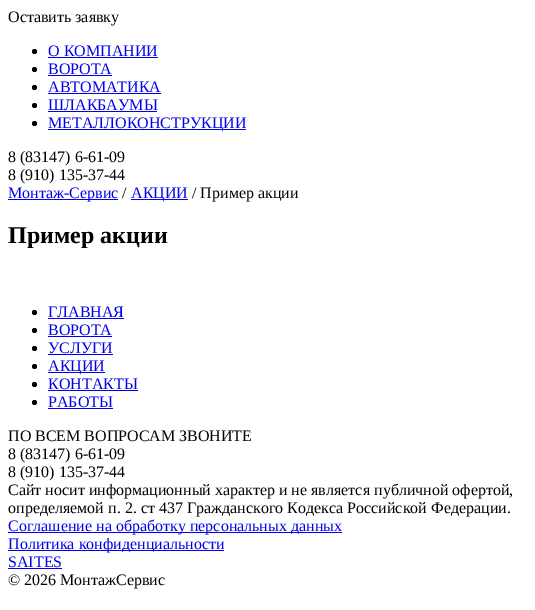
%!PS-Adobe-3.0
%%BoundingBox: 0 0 535 610
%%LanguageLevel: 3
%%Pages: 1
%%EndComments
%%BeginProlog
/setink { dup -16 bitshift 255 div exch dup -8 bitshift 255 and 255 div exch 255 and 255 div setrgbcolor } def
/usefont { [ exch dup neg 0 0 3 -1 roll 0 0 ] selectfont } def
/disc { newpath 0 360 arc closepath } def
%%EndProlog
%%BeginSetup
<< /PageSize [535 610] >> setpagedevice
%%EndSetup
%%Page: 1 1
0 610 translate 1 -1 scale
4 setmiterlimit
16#FFFFFF setink
0 0 535 610 rectfill
/LiberationSerif-Regular 16 usefont
16#000000 setink
8 22 moveto (Оставить заявку) show
34.5 51.5 2.5 disc fill
16#0000EE setink
48 56 moveto (О КОМПАНИИ) show
48 57 110 1 rectfill
16#000000 setink
34.5 69.5 2.5 disc fill
16#0000EE setink
48 74 moveto (ВОРОТА) show
48 75 64 1 rectfill
16#000000 setink
34.5 87.5 2.5 disc fill
16#0000EE setink
48 92 moveto (АВТОМАТИКА) show
48 93 113 1 rectfill
16#000000 setink
34.5 105.5 2.5 disc fill
16#0000EE setink
48 110 moveto (ШЛАКБАУМЫ) show
48 111 109 1 rectfill
16#000000 setink
34.5 123.5 2.5 disc fill
16#0000EE setink
48 129 198 1 rectfill
48 128 moveto (МЕТАЛЛОКОНСТРУКЦИИ) show
16#000000 setink
8 162 moveto (8 \(83147\) 6-61-09) show
8 180 moveto (8 \(910\) 135-37-44) show
16#0000EE setink
8 199 110 1 rectfill
8 198 moveto (Монтаж-Сервис) show
16#000000 setink
122 198 moveto (/) show
16#0000EE setink
131 199 57 1 rectfill
131 198 moveto (АКЦИИ) show
16#000000 setink
192 198 moveto (/ Пример акции) show
/LiberationSerif-Bold 24 usefont
8 243 moveto (Пример акции) show
34.5 312.5 2.5 disc fill
/LiberationSerif-Regular 16 usefont
16#0000EE setink
48 317 moveto (ГЛАВНАЯ) show
48 318 76 1 rectfill
16#000000 setink
34.5 330.5 2.5 disc fill
16#0000EE setink
48 335 moveto (ВОРОТА) show
48 336 64 1 rectfill
16#000000 setink
34.5 348.5 2.5 disc fill
16#0000EE setink
48 353 moveto (УСЛУГИ) show
48 354 65 1 rectfill
16#000000 setink
34.5 366.5 2.5 disc fill
16#0000EE setink
48 372 57 1 rectfill
48 371 moveto (АКЦИИ) show
16#000000 setink
34.5 384.5 2.5 disc fill
16#0000EE setink
48 389 moveto (КОНТАКТЫ) show
48 390 90 1 rectfill
16#000000 setink
34.5 402.5 2.5 disc fill
16#0000EE setink
48 407 moveto (РАБОТЫ) show
48 408 65 1 rectfill
16#000000 setink
[
    [(ПО ВСЕМ ВОПРОСАМ ЗВОНИТЕ) 8 441]
    [(8 \(83147\) 6-61-09) 8 459]
    [(8 \(910\) 135-37-44) 8 477]
    [(Сайт носит информационный характер и не является публичной офертой,) 8 495]
    [(определяемой п. 2. ст 437 Гражданского Кодекса Российской Федерации.) 8 513]
] { aload pop moveto show } forall
16#0000EE setink
8 532 334 1 rectfill
8 531 moveto (Соглашение на обработку персональных данных) show
8 550 216 1 rectfill
8 549 moveto (Политика конфиденциальности) show
8 567 moveto (SAITES) show
8 568 54 1 rectfill
16#000000 setink
8 585 moveto (© 2026 МонтажСервис) show
showpage
%%EOF
